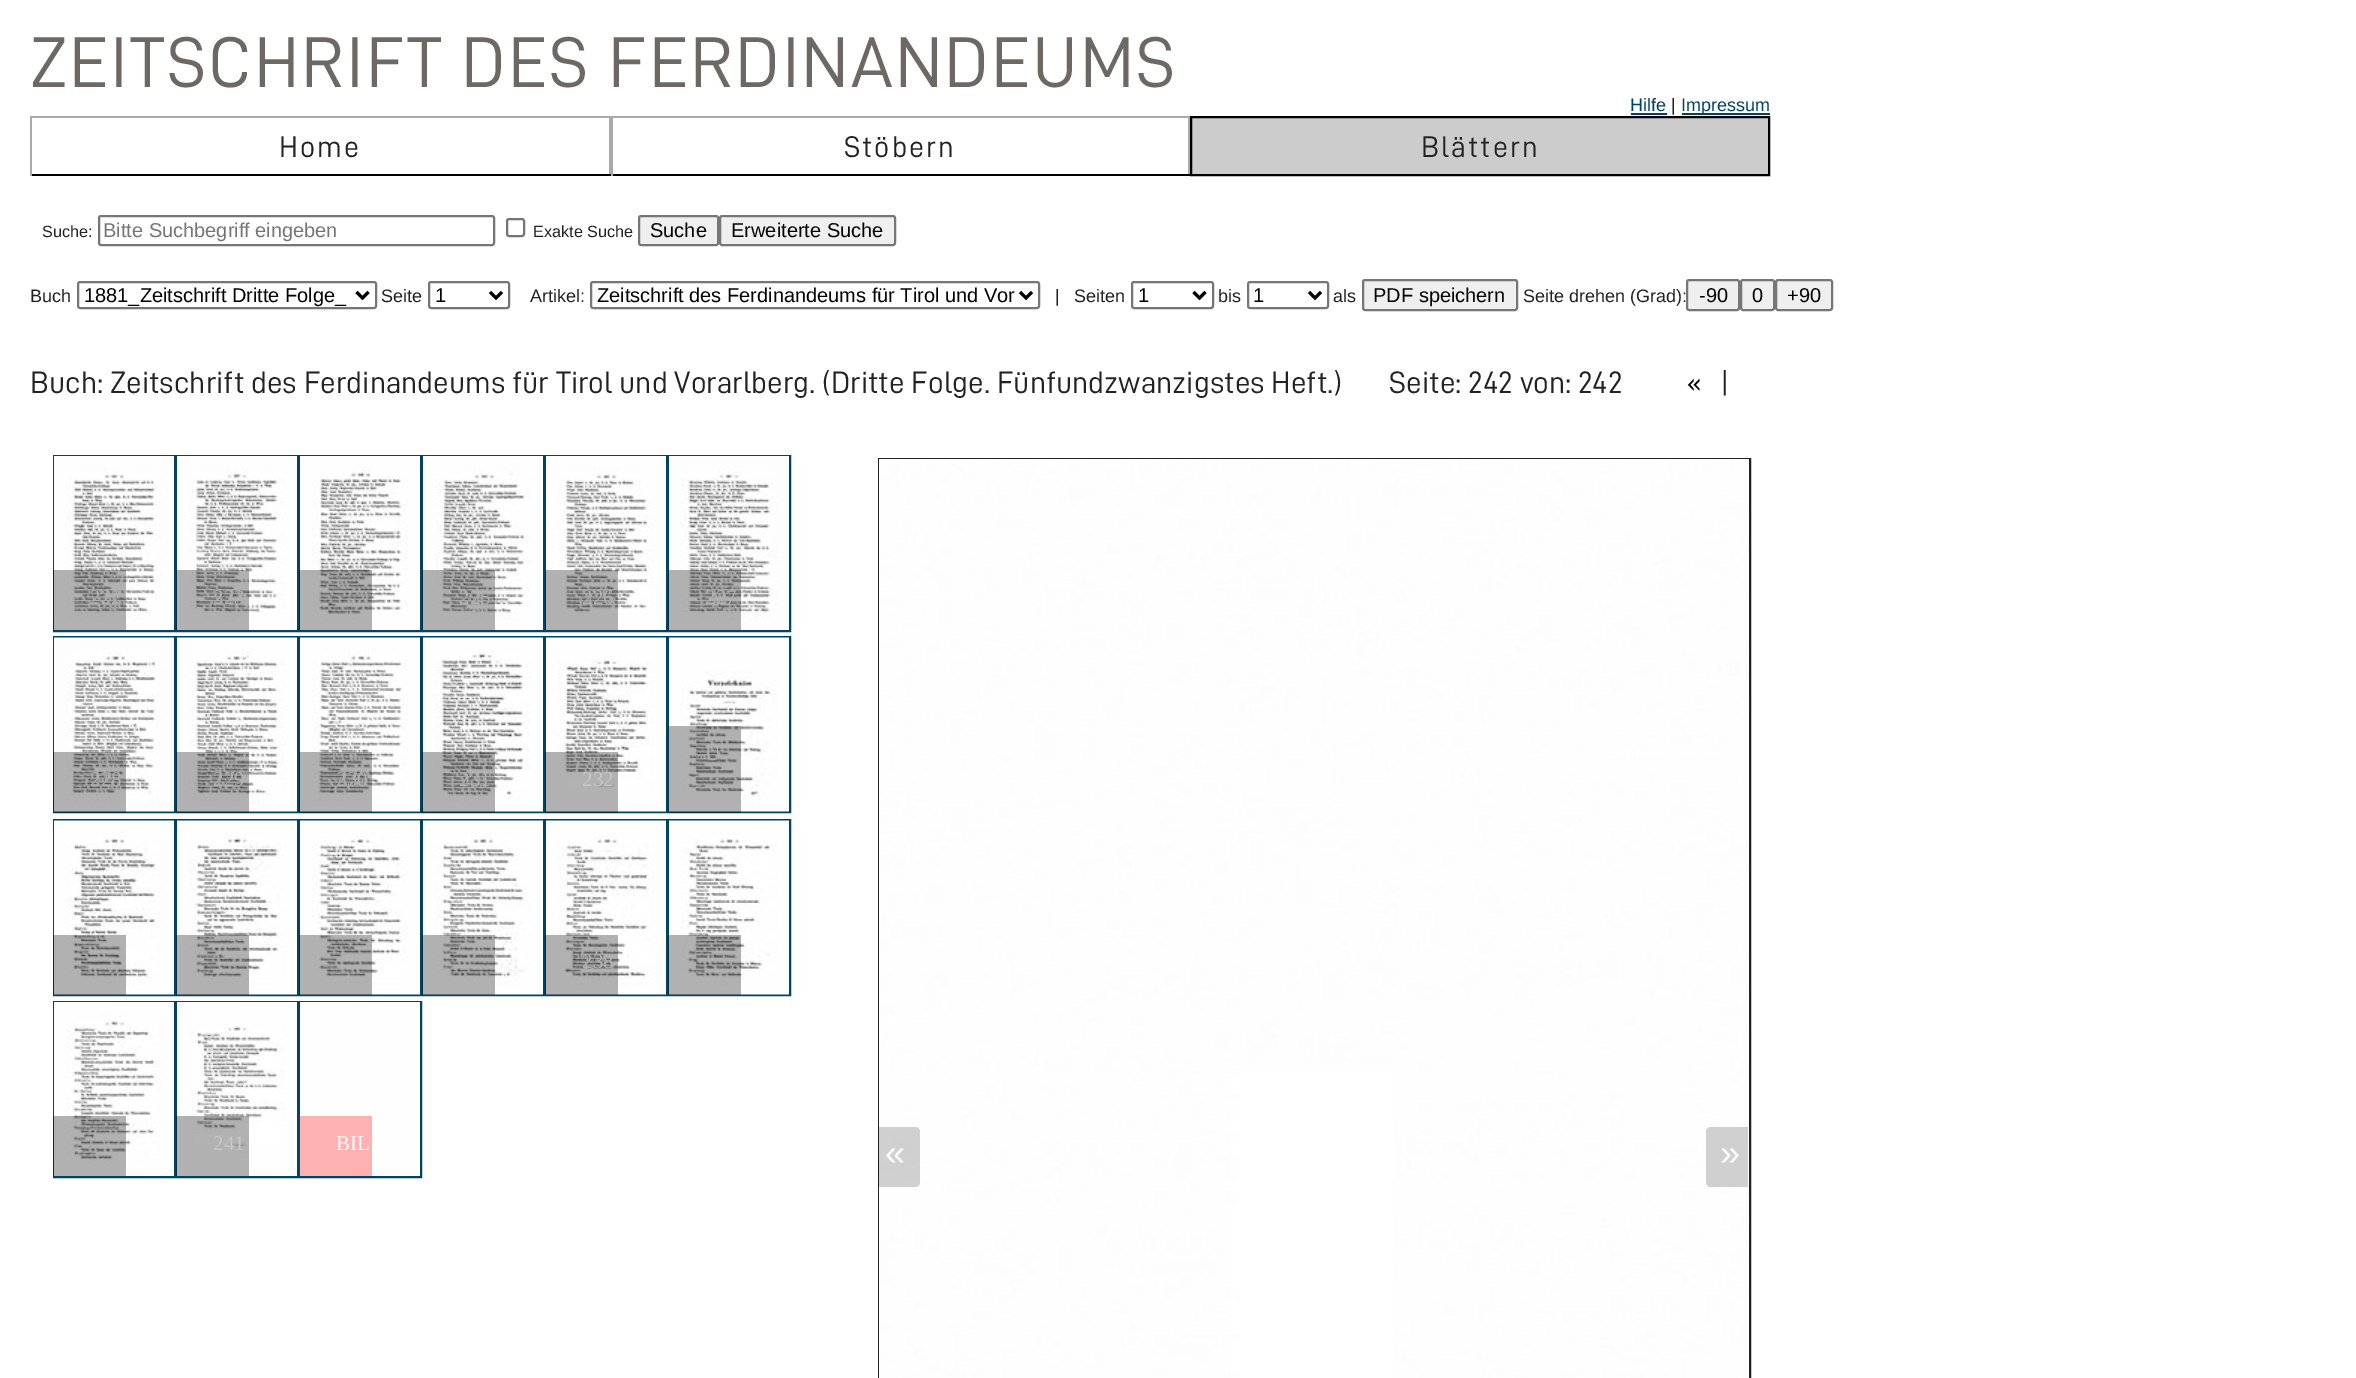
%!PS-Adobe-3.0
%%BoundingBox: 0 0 2356 1378
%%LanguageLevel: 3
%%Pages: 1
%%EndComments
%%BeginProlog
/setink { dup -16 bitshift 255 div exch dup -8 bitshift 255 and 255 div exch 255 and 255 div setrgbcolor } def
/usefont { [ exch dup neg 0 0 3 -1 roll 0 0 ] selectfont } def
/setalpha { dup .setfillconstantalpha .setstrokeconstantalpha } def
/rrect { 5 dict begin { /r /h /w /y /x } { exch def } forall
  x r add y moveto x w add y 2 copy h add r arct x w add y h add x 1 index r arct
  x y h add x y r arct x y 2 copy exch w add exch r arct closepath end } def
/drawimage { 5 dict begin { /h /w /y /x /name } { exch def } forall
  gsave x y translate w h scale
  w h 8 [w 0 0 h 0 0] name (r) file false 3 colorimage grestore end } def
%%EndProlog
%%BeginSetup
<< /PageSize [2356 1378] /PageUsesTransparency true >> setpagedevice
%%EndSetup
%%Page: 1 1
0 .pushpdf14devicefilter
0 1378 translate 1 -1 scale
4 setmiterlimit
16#FFFFFF setink
0 0 2356 1378 rectfill
/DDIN-Regular 72 usefont
16#6D6863 setink
30 87 moveto 1.95 0 (ZEITSCHRIFT DES FERDINANDEUMS) ashow
/LiberationSans-Regular 18 usefont
16#004461 setink
1630 111 moveto (Hilfe) show
1631 113 36 2 rectfill
16#222222 setink
1671 111 moveto (|) show
16#004461 setink
1682 113 88 2 rectfill
1681 111 moveto (Impressum) show
[
    [30 116 1160 2 16#AAAAAA]
    [609 116 2 60 16#AAAAAA]
    [30 174 581 2 16#000000]
    [30 116 2 60 16#AAAAAA]
] { aload pop setink rectfill } forall
/DDIN-Regular 30 usefont
16#222222 setink
279 157 moveto 1.95 0 (Home) ashow
[
    [1188 116 2 60 16#AAAAAA]
    [611 174 579 2 16#000000]
    [611 116 2 60 16#AAAAAA]
] { aload pop setink rectfill } forall
16#222222 setink
844 157 moveto 1.95 0 (Stöbern) ashow
16#CCCCCC setink
1191 117 moveto 1769 117 lineto 1769 175 lineto 1191 175 lineto closepath gsave fill grestore
16#000000 setink
2 setlinewidth
stroke
16#222222 setink
1421 157 moveto 1.95 0 (Blättern) ashow
/LiberationSans-Regular 16.25 usefont
42 237 moveto (Suche:) show
16#767676 setink
99 216 395 29 2 rrect stroke
/LiberationSans-Regular 20 usefont
16#757575 setink
103 237 moveto (Bitte Suchbegriff eingeben) show
16#767676 setink
507 219 17 17 2 rrect stroke
/LiberationSans-Regular 16.25 usefont
16#222222 setink
533 237 moveto (Exakte Suche) show
16#EFEFEF setink
639 216 79 29 2 rrect gsave fill grestore
16#767676 setink
stroke
/LiberationSans-Regular 20 usefont
16#000000 setink
650 237 moveto (Suche) show
16#EFEFEF setink
720 216 175 29 2 rrect gsave fill grestore
16#767676 setink
stroke
16#000000 setink
731 237 moveto (Erweiterte Suche) show
/LiberationSans-Regular 18 usefont
16#222222 setink
30 302 moveto (Buch) show
16#767676 setink
78 282 298 26 2 rrect stroke
16#000000 setink
3 setlinewidth
356.5 292 moveto 362.5 298 lineto 368.5 292 lineto stroke
/LiberationSans-Regular 20 usefont
84 302 moveto (1881_Zeitschrift Dritte Folge_) show
/LiberationSans-Regular 18 usefont
16#222222 setink
381 302 moveto (Seite) show
16#767676 setink
2 setlinewidth
429 282 80 26 2 rrect stroke
16#000000 setink
3 setlinewidth
490 292 moveto 496 298 lineto 502 292 lineto stroke
/LiberationSans-Regular 20 usefont
435 302 moveto (1) show
/LiberationSans-Regular 18 usefont
16#222222 setink
530 302 moveto (Artikel:) show
16#767676 setink
2 setlinewidth
591 282 448 26 2 rrect stroke
16#000000 setink
3 setlinewidth
1020 292 moveto 1026 298 lineto 1032 292 lineto stroke
/LiberationSans-Regular 20 usefont
597 302 moveto (Zeitschrift des Ferdinandeums für Tirol und Vor) show
/LiberationSans-Regular 18 usefont
16#222222 setink
1055 302 moveto (|) show
1074 302 moveto (Seiten) show
16#767676 setink
2 setlinewidth
1132 282 81 26 2 rrect stroke
16#000000 setink
3 setlinewidth
1193.5 292 moveto 1199.5 298 lineto 1205.5 292 lineto stroke
/LiberationSans-Regular 20 usefont
1138 302 moveto (1) show
/LiberationSans-Regular 18 usefont
16#222222 setink
1218 302 moveto (bis) show
16#767676 setink
2 setlinewidth
1248 282 80 26 2 rrect stroke
16#000000 setink
3 setlinewidth
1309 292 moveto 1315 298 lineto 1321 292 lineto stroke
/LiberationSans-Regular 20 usefont
1253 302 moveto (1) show
/LiberationSans-Regular 18 usefont
16#222222 setink
1333 302 moveto (als) show
16#EFEFEF setink
1363 280 154 30 2 rrect gsave fill grestore
16#767676 setink
2 setlinewidth
stroke
/LiberationSans-Regular 20 usefont
16#000000 setink
1373 302 moveto (PDF speichern) show
/LiberationSans-Regular 18 usefont
16#222222 setink
1523 302 moveto (Seite drehen \(Grad\):) show
16#EFEFEF setink
1687 280 52 30 2 rrect gsave fill grestore
16#767676 setink
stroke
/LiberationSans-Regular 20 usefont
16#000000 setink
1699 302 moveto (-90) show
16#EFEFEF setink
1741 280 33 30 2 rrect gsave fill grestore
16#767676 setink
stroke
16#000000 setink
1752 302 moveto (0) show
16#EFEFEF setink
1776 280 56 30 2 rrect gsave fill grestore
16#767676 setink
stroke
16#000000 setink
1787 302 moveto (+90) show
/DDIN-Regular 31.1 usefont
16#222222 setink
30 393 moveto (Buch: Zeitschrift des Ferdinandeums für Tirol und Vorarlberg. \(Dritte Folge. Fünfundzwanzigstes Heft.\)       Seite: 242 von: 242) show
16#000000 setink
1687 393 moveto («) show
16#222222 setink
1720 393 moveto (|) show
16#004461 setink
54 456 121 175 rectstroke
(img1.raw) 54 456 120 174 drawimage
0.3 setalpha
16#000000 setink
53 570 73 60 rectfill
/LiberationSerif-Regular 21 usefont
1 setalpha
16#B2B2B2 setink
90 604 moveto (222) show
16#004461 setink
177 456 121 175 rectstroke
(img2.raw) 177 456 120 174 drawimage
0.3 setalpha
16#000000 setink
176 570 73 60 rectfill
1 setalpha
16#B2B2B2 setink
213 604 moveto (223) show
16#004461 setink
300 456 121 175 rectstroke
(img3.raw) 300 456 120 174 drawimage
0.3 setalpha
16#000000 setink
299 570 73 60 rectfill
1 setalpha
16#004461 setink
423 456 121 175 rectstroke
(img4.raw) 423 456 120 174 drawimage
0.3 setalpha
16#000000 setink
422 570 73 60 rectfill
1 setalpha
16#B2B2B2 setink
459 604 moveto (225) show
16#004461 setink
546 456 121 175 rectstroke
(img5.raw) 546 456 120 174 drawimage
0.3 setalpha
16#000000 setink
545 570 73 60 rectfill
1 setalpha
16#B2B2B2 setink
582 604 moveto (226) show
16#004461 setink
669 456 121 175 rectstroke
(img6.raw) 669 456 120 174 drawimage
0.3 setalpha
16#000000 setink
668 570 73 60 rectfill
1 setalpha
16#B2B2B2 setink
705 604 moveto (227) show
16#004461 setink
669 637 121 175 rectstroke
(img7.raw) 669 637 120 175 drawimage
0.3 setalpha
16#000000 setink
668 726 73 87 rectfill
1 setalpha
16#B2B2B2 setink
705 760 moveto (U) show
16#004461 setink
54 637 121 175 rectstroke
(img8.raw) 54 637 120 175 drawimage
0.3 setalpha
16#000000 setink
53 752 73 61 rectfill
1 setalpha
16#B2B2B2 setink
90 786 moveto (228) show
16#004461 setink
177 637 121 175 rectstroke
(img9.raw) 177 637 120 175 drawimage
0.3 setalpha
16#000000 setink
176 752 73 61 rectfill
1 setalpha
16#B2B2B2 setink
213 786 moveto (229) show
16#004461 setink
300 637 121 175 rectstroke
(img10.raw) 300 637 120 175 drawimage
0.3 setalpha
16#000000 setink
299 752 73 61 rectfill
1 setalpha
16#B2B2B2 setink
336 786 moveto (230) show
16#004461 setink
423 637 121 175 rectstroke
(img11.raw) 423 637 120 175 drawimage
0.3 setalpha
16#000000 setink
422 752 73 61 rectfill
1 setalpha
16#B2B2B2 setink
459 786 moveto (231) show
16#004461 setink
546 637 121 175 rectstroke
(img12.raw) 546 637 120 175 drawimage
0.3 setalpha
16#000000 setink
545 752 73 61 rectfill
1 setalpha
16#C7C7C7 setink
582 786 moveto (232) show
16#004461 setink
54 820 121 175 rectstroke
(img13.raw) 54 820 120 175 drawimage
0.3 setalpha
16#000000 setink
53 935 73 60 rectfill
1 setalpha
16#004461 setink
177 820 121 175 rectstroke
(img14.raw) 177 820 120 175 drawimage
0.3 setalpha
16#000000 setink
176 935 73 60 rectfill
1 setalpha
16#004461 setink
300 820 121 175 rectstroke
(img15.raw) 300 820 120 175 drawimage
0.3 setalpha
16#000000 setink
299 935 73 60 rectfill
1 setalpha
16#004461 setink
423 820 121 175 rectstroke
(img16.raw) 423 820 120 175 drawimage
0.3 setalpha
16#000000 setink
422 935 73 60 rectfill
1 setalpha
16#004461 setink
546 820 121 175 rectstroke
(img17.raw) 546 820 120 175 drawimage
0.3 setalpha
16#000000 setink
545 935 73 60 rectfill
1 setalpha
16#B2B2B2 setink
582 968 moveto (238) show
16#004461 setink
669 820 121 175 rectstroke
(img18.raw) 669 820 120 175 drawimage
0.3 setalpha
16#000000 setink
668 935 73 60 rectfill
1 setalpha
16#004461 setink
54 1002 121 175 rectstroke
(img19.raw) 54 1002 120 174 drawimage
0.3 setalpha
16#000000 setink
53 1116 73 60 rectfill
1 setalpha
16#004461 setink
177 1002 121 175 rectstroke
(img20.raw) 177 1002 120 174 drawimage
0.3 setalpha
16#000000 setink
176 1116 73 60 rectfill
1 setalpha
16#C7C7C7 setink
213 1150 moveto (241) show
16#004461 setink
300 1002 121 175 rectstroke
16#FEFEFE setink
300 1002 120 174 rectfill
0.3 setalpha
16#FF0000 setink
299 1116 73 60 rectfill
1 setalpha
16#FEFEFE setink
336 1150 moveto (BIL) show
16#222222 setink
879 459 871 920 rectstroke
(img21.raw) 879 459 870 919 drawimage
0.18 setalpha
16#000000 setink
878 1127 moveto 915 1127 lineto 918 1127 920 1129 920 1132 curveto 920 1182 lineto 920 1185 918 1187 915 1187 curveto 878 1187 lineto closepath fill
/LiberationSans-Regular 36 usefont
1 setalpha
16#FEFEFE setink
885 1165 moveto («) show
16#D0D0D0 setink
1711 1127 moveto 1748 1127 lineto 1748 1187 lineto 1711 1187 lineto 1708 1187 1706 1185 1706 1182 curveto 1706 1132 lineto 1706 1129 1708 1127 1711 1127 curveto closepath fill
16#FEFEFE setink
1720 1165 moveto (») show
.poppdf14devicefilter showpage
%%EOF
